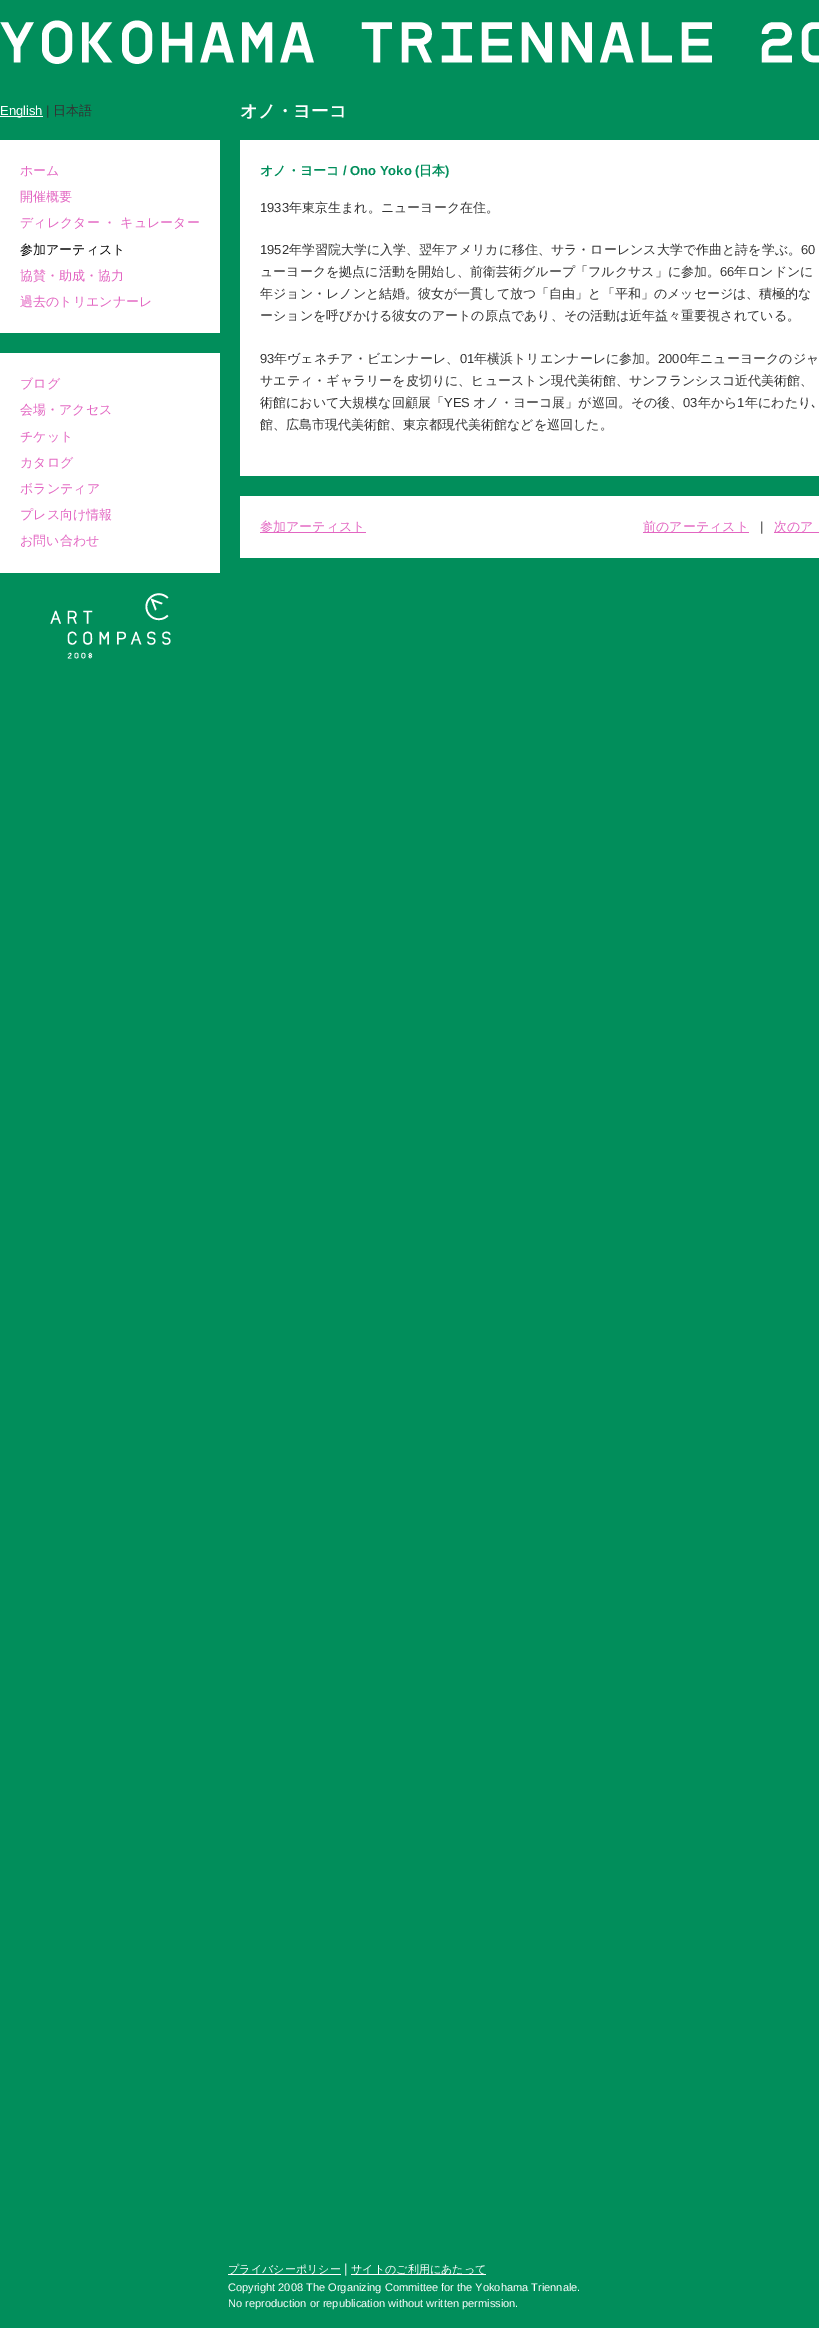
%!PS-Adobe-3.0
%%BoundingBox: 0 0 819 2328
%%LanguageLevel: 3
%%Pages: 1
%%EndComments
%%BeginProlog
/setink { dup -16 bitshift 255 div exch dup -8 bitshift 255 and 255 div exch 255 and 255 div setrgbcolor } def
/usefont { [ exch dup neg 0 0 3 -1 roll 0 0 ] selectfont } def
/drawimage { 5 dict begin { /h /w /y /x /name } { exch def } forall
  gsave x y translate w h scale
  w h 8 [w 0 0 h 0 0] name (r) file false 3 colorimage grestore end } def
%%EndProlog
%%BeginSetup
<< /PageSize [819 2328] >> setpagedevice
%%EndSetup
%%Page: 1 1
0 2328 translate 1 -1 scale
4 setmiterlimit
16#018E5B setink
0 0 819 2328 rectfill
(img1.raw) 0 20 819 44 drawimage
16#FFFFFF setink
0 116 43 1 rectfill
/LiberationSans-Regular 13 usefont
0 115 moveto (English) show
16#333333 setink
46 115 moveto (|) show
/WenQuanYiZenHei-Medium 13 usefont
53 115 moveto (日本語) show
16#FFFFFF setink
0 140 220 193 rectfill
16#E366C2 setink
[
    [(ホーム) 20 175]
    [(開催概要) 20 201]
    [(ディレクター ・ キュレーター) 20 227]
] { aload pop moveto show } forall
16#000000 setink
20 254 moveto (参加アーティスト) show
16#E366C2 setink
20 280 moveto (協賛・助成・協力) show
20 306 moveto (過去のトリエンナーレ) show
16#FFFFFF setink
0 353 220 220 rectfill
16#E366C2 setink
[
    [(ブログ) 20 388]
    [(会場・アクセス) 20 414]
    [(チケット) 20 441]
    [(カタログ) 20 467]
    [(ボランティア) 20 493]
    [(プレス向け情報) 20 519]
    [(お問い合わせ) 20 545]
] { aload pop moveto show } forall
(img2.raw) 50 593 121 66 drawimage
/WenQuanYiZenHei-Bold 17.5 usefont
16#FFFFFF setink
240 117 moveto (オノ・ヨーコ) show
240 140 579 336 rectfill
/WenQuanYiZenHei-Bold 13 usefont
16#018E5B setink
260 175 moveto (オノ・ヨーコ) show
/LiberationSans-Bold 13 usefont
343 175 moveto (/ Ono Yoko \() show
/WenQuanYiZenHei-Bold 13 usefont
419 175 moveto (日本) show
/LiberationSans-Bold 13 usefont
445 175 moveto (\)) show
/LiberationSans-Regular 13 usefont
16#333333 setink
260 212 moveto (1933) show
/WenQuanYiZenHei-Medium 13 usefont
289 212 moveto (年東京生まれ。ニューヨーク在住。) show
/LiberationSans-Regular 13 usefont
260 254 moveto (1952) show
/WenQuanYiZenHei-Medium 13 usefont
289 254 moveto (年学習院大学に入学、翌年アメリカに移住、サラ・ローレンス大学で作曲と詩を学ぶ。) show
/LiberationSans-Regular 13 usefont
801 254 moveto (60) show
/WenQuanYiZenHei-Medium 13 usefont
260 276 moveto (ューヨークを拠点に活動を開始し、前衛芸術グループ「フルクサス」に参加。) show
/LiberationSans-Regular 13 usefont
720 276 moveto (66) show
/WenQuanYiZenHei-Medium 13 usefont
[
    [(年ロンドンに) 734 276]
    [(年ジョン・レノンと結婚。彼女が一貫して放つ「自由」と「平和」のメッセージは、積極的な) 260 298]
    [(ーションを呼びかける彼女のアートの原点であり、その活動は近年益々重要視されている。) 260 320]
] { aload pop moveto show } forall
/LiberationSans-Regular 13 usefont
260 363 moveto (93) show
/WenQuanYiZenHei-Medium 13 usefont
274 363 moveto (年ヴェネチア・ビエンナーレ、) show
/LiberationSans-Regular 13 usefont
460 363 moveto (01) show
/WenQuanYiZenHei-Medium 13 usefont
474 363 moveto (年横浜トリエンナーレに参加。) show
/LiberationSans-Regular 13 usefont
658 363 moveto (2000) show
/WenQuanYiZenHei-Medium 13 usefont
[
    [(年ニューヨークのジャ) 687 363]
    [(サエティ・ギャラリーを皮切りに、ヒューストン現代美術館、サンフランシスコ近代美術館、) 260 385]
    [(術館において大規模な回顧展「) 260 407]
] { aload pop moveto show } forall
/LiberationSans-Regular 13 usefont
444 407 moveto (YES) show
/WenQuanYiZenHei-Medium 13 usefont
473 407 moveto (オノ・ヨーコ展」が巡回。その後、) show
/LiberationSans-Regular 13 usefont
683 407 moveto (03) show
/WenQuanYiZenHei-Medium 13 usefont
698 407 moveto (年から) show
/LiberationSans-Regular 13 usefont
737 407 moveto (1) show
/WenQuanYiZenHei-Medium 13 usefont
745 407 moveto (年にわたり) show
/IPAPGothic-Regular 13 usefont
811 407 moveto (､) show
/WenQuanYiZenHei-Medium 13 usefont
260 429 moveto (館、広島市現代美術館、東京都現代美術館などを巡回した。) show
16#FFFFFF setink
240 496 579 62 rectfill
16#E366C2 setink
260 532 106 1 rectfill
260 531 moveto (参加アーティスト) show
643 532 106 1 rectfill
643 531 moveto (前のアーティスト) show
/LiberationSans-Regular 13 usefont
16#333333 setink
760 531 moveto (|) show
16#E366C2 setink
774 532 45 1 rectfill
/WenQuanYiZenHei-Medium 13 usefont
774 531 moveto (次のア) show
16#FFFFFF setink
228 2274 113 1 rectfill
/WenQuanYiZenHei-Medium 11.05 usefont
228 2273 moveto (プライバシーポリシー) show
/LiberationSans-Regular 13 usefont
344 2273 moveto (|) show
351 2274 135 1 rectfill
/WenQuanYiZenHei-Medium 11.05 usefont
351 2273 moveto (サイトのご利用にあたって) show
/LiberationSans-Regular 11.05 usefont
228 2291 moveto (Copyright 2008 The Organizing Committee for the Yokohama Triennale.) show
228 2307 moveto (No reproduction or republication without written permission.) show
showpage
%%EOF
